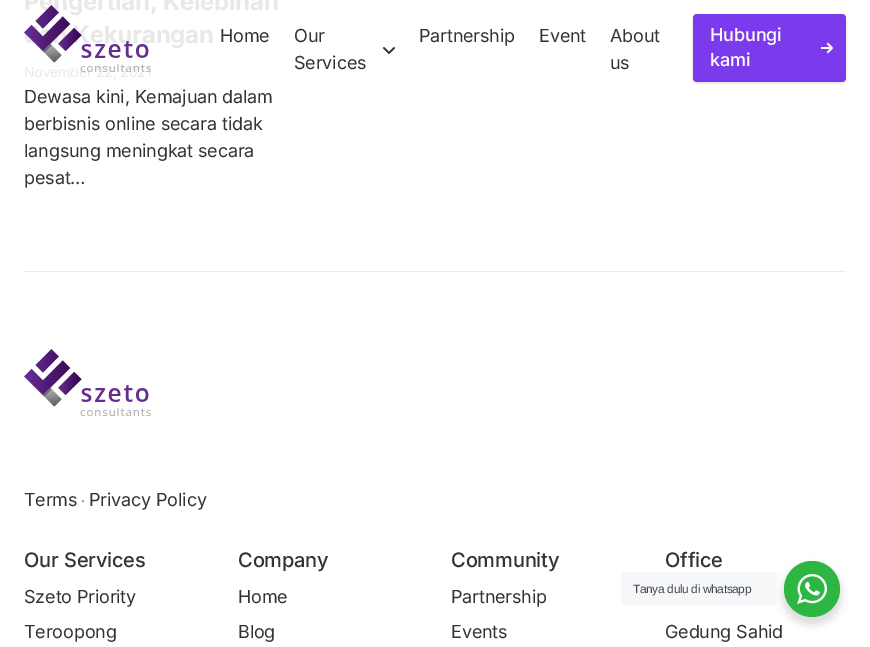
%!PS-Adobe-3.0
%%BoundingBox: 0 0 870 647
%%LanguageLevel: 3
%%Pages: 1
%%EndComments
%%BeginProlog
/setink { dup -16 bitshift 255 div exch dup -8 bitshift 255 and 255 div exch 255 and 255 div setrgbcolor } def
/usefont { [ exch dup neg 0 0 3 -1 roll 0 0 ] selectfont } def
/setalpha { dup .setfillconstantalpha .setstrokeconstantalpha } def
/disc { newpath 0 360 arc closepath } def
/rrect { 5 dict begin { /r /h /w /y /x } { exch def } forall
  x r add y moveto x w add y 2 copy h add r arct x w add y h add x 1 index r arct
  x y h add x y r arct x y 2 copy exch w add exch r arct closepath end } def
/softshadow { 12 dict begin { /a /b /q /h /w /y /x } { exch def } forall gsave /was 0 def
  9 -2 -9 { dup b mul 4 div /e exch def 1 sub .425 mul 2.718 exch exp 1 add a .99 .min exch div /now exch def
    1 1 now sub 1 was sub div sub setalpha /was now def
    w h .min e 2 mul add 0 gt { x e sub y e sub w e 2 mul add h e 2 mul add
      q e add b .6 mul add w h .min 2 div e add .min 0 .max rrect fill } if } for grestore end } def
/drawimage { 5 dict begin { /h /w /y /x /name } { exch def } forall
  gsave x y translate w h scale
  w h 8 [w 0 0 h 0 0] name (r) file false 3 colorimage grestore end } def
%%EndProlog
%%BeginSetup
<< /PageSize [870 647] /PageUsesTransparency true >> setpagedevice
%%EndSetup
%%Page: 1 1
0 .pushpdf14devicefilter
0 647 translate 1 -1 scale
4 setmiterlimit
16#FFFFFF setink
0 0 870 647 rectfill
/Inter-Bold 24 usefont
16#E8E8E8 setink
24 10 moveto -0.25 0 (Pengertian, Kelebihan) ashow
90 43 moveto -0.25 0 (ekurangan) ashow
/Inter-Regular 14 usefont
24 77 moveto -0.15 0 (November 22, 2021) ashow
/Inter-Regular 18 usefont
16#333333 setink
24 103 moveto -0.15 0 (Dewasa kini, Kemajuan dalam) ashow
24 130 moveto -0.15 0 (berbisnis online secara tidak) ashow
24 157 moveto -0.15 0 (langsung meningkat secara) ashow
24 184 moveto -0.15 0 (pesat…) ashow
(img1.raw) 24 5 127 67 drawimage
220 42 moveto -0.15 0 (Home) ashow
294 42 moveto -0.15 0 (Our) ashow
(img2.raw) 383 47 12 7 drawimage
294 69 moveto -0.15 0 (Services) ashow
419 42 moveto -0.15 0 (Partnership) ashow
539 42 moveto -0.15 0 (Event) ashow
610 42 moveto -0.15 0 (About) ashow
610 69 moveto -0.15 0 (us) ashow
16#000000 setink
693 15 153 68 4 1 0.06 softshadow
693 15 153 68 4 1.5 0.1 softshadow
16#7C3AED setink
693 14 153 68 4 rrect fill
/Inter-Medium 18 usefont
16#FFFFFF setink
710 41 moveto -0.15 0 (Hubungi) ashow
710 66 moveto -0.15 0 (kami) ashow
(img3.raw) 821 42 12 12 drawimage
16#EAEAEA setink
24 271 822 1 rectfill
(img4.raw) 24 349 127 67 drawimage
/Inter-Regular 18 usefont
16#333333 setink
24 506 moveto -0.15 0 (Terms) ashow
/Inter-Regular 14 usefont
16#666666 setink
81 506 moveto -0.15 0 (·) ashow
/Inter-Regular 18 usefont
16#333333 setink
89 506 moveto -0.15 0 (Privacy Policy) ashow
/Inter-Medium 20 usefont
24 567 moveto -0.15 0 (Our Services) ashow
/Inter-Regular 18 usefont
24 603 moveto -0.15 0 (Szeto Priority) ashow
24 638 moveto -0.15 0 (Teroopong) ashow
/Inter-Medium 20 usefont
238 567 moveto -0.15 0 (Company) ashow
/Inter-Regular 18 usefont
238 603 moveto -0.15 0 (Home) ashow
238 638 moveto -0.15 0 (Blog) ashow
/Inter-Medium 20 usefont
451 567 moveto -0.15 0 (Community) ashow
/Inter-Regular 18 usefont
451 603 moveto -0.15 0 (Partnership) ashow
451 638 moveto -0.15 0 (Events) ashow
/Inter-Medium 20 usefont
665 567 moveto -0.15 0 (Office) ashow
/Inter-Regular 18 usefont
665 638 moveto -0.15 0 (Gedung Sahid) ashow
16#000000 setink
782 565 60 60 30 4 0.14 softshadow
16#F5F7F9 setink
621 572 156 34 4 rrect fill
/LiberationSans-Regular 12 usefont
16#43474E setink
633 593 moveto -0.4 0 (Tanya dulu di whatsapp) ashow
16#2DB742 setink
812 589 28 disc fill
(img5.raw) 797 574 30 30 drawimage
.poppdf14devicefilter showpage
%%EOF
